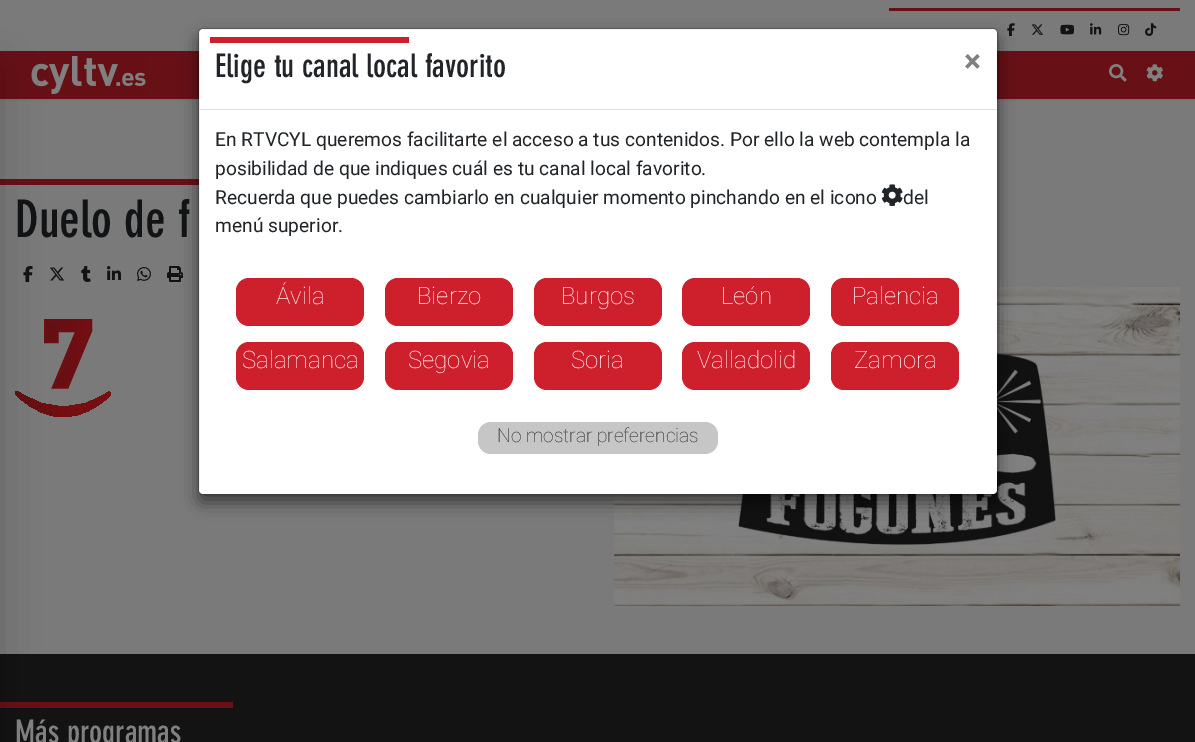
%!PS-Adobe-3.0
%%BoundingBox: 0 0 1195 742
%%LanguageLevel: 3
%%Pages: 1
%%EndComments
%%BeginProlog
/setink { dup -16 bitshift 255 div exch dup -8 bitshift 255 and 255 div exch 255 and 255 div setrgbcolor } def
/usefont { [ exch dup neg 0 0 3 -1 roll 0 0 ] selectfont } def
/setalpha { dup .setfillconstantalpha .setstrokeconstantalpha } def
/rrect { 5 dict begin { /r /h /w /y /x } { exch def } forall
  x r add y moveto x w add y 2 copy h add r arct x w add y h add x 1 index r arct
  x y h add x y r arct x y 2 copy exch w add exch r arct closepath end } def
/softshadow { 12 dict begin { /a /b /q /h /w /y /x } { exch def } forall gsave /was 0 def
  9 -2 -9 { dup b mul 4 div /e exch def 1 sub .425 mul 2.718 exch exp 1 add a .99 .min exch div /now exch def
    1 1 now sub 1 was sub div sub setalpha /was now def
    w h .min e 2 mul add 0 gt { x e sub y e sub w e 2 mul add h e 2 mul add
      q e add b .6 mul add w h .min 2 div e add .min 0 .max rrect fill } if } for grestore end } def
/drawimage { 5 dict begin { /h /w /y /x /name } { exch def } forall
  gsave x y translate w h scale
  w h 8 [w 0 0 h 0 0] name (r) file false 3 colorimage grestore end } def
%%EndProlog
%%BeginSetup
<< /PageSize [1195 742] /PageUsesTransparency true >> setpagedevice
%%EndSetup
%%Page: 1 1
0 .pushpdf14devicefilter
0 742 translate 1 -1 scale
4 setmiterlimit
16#7A7A7A setink
0 0 1195 742 rectfill
16#000000 setink
1 52 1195 48 0 1.5 0.1 softshadow
16#671016 setink
0 51 1195 48 rectfill
(img7.raw) 31 56 115 38 drawimage
0 179 199 6 rectfill
(img10.raw) 23 266 10 16 drawimage
(img11.raw) 50 267 15 14 drawimage
gsave 45 320 moveto 45 342 lineto 58 342 lineto 58 331 lineto 77 331 lineto 53 388 lineto 67 388 lineto 91 331 lineto 91 320 lineto closepath clip newpath
<< /ShadingType 2 /ColorSpace /DeviceRGB /Coords [45 354 91 354] /Extend [true true] /Function << /FunctionType 3 /Domain [0 1] /Functions [<< /FunctionType 2 /Domain [0 1] /C0 [0.392 0.059 0.075] /C1 [0.392 0.059 0.075] /N 1 >> << /FunctionType 2 /Domain [0 1] /C0 [0.392 0.059 0.075] /C1 [0.467 0.055 0.071] /N 1 >>] /Bounds [0.21] /Encode [0 1 0 1] >> >> shfill grestore
gsave
15 319 96 98 rectclip
16#6C0F13 setink
2.1 setlinewidth
91 331 moveto 91 320 lineto 45 320 lineto 45 342 lineto 57.5 342 lineto 57.5 331 lineto 76.5 331 lineto 53 387.5 lineto 67.5 387.5 lineto closepath stroke
grestore
gsave 17 396 moveto 50 426 81 422 110 396 curveto 112 394 110 391 108 392 curveto 79 412 49 412 19 392 curveto 17 391 lineto 15 391 15 395 17 396 curveto clip newpath
<< /ShadingType 2 /ColorSpace /DeviceRGB /Coords [15 404 111 404] /Extend [true true] /Function << /FunctionType 3 /Domain [0 1] /Functions [<< /FunctionType 2 /Domain [0 1] /C0 [0.392 0.059 0.075] /C1 [0.392 0.059 0.075] /N 1 >> << /FunctionType 2 /Domain [0 1] /C0 [0.392 0.059 0.075] /C1 [0.467 0.055 0.071] /N 1 >> << /FunctionType 2 /Domain [0 1] /C0 [0.467 0.055 0.071] /C1 [0.467 0.055 0.071] /N 1 >>] /Bounds [0.06 0.59] /Encode [0 1 0 1 0 1] >> >> shfill grestore
16#131313 setink
0 654 1195 88 rectfill
16#671016 setink
0 702 233 6 rectfill
16#000000 setink
-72 66 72 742 0 24 0.18 softshadow
16#671016 setink
889 8 291 3 rectfill
(img1.raw) 1007 23 8 13 drawimage
(img2.raw) 1031 24 12 11 drawimage
(img3.raw) 1060 24 14 11 drawimage
(img4.raw) 1090 23 12 12 drawimage
(img5.raw) 1118 24 12 12 drawimage
(img6.raw) 1145 23 12 13 drawimage
(img8.raw) 1109 64 18 18 drawimage
(img9.raw) 1146 64 17 18 drawimage
/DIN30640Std-Bold 51 usefont
16#111315 setink
15 237 moveto (Duelo de f) show
(img12.raw) 81 266 10 16 drawimage
(img13.raw) 107 266 14 14 drawimage
(img14.raw) 137 267 14 14 drawimage
(img15.raw) 167 266 16 16 drawimage
(img16.raw) 614 287 566 319 drawimage
/DIN30640Std-Bold 32 usefont
16#808080 setink
15 743 moveto (Más programas) show
16#000000 setink
198 36 800 467 5 8 0.5 softshadow
16#FFFFFF setink
199 29 798 465 4 rrect fill
0.2 setalpha
16#000000 setink
198.5 28.5 799 466 4.5 rrect stroke
1 setalpha
16#DEE2E6 setink
199 109 798 1 rectfill
16#CD202C setink
210 37 199 6 rectfill
16#212529 setink
215 77 moveto (Elige tu canal local favorito) show
/Roboto-Bold 32 usefont
16#808080 setink
964 72 moveto (×) show
/Roboto-Regular 19.2 usefont
16#212529 setink
[
    [(En RTVCYL queremos facilitarte el acceso a tus contenidos. Por ello la web contempla la) 215 146]
    [(posibilidad de que indiques cuál es tu canal local favorito.) 215 175]
    [(Recuerda que puedes cambiarlo en cualquier momento pinchando en el icono) 215 204]
] { aload pop moveto show } forall
(img17.raw) 881 184 22 22 drawimage
903 204 moveto (del) show
215 232 moveto (menú superior.) show
16#CD202C setink
236 278 128 48 13 rrect fill
/Roboto-Thin 24 usefont
16#FFFFFF setink
276 304 moveto (Ávila) show
16#CD202C setink
385 278 128 48 13 rrect fill
16#FFFFFF setink
417 304 moveto (Bierzo) show
16#CD202C setink
534 278 128 48 13 rrect fill
16#FFFFFF setink
561 304 moveto (Burgos) show
16#CD202C setink
682 278 128 48 13 rrect fill
16#FFFFFF setink
721 304 moveto (León) show
16#CD202C setink
831 278 128 48 13 rrect fill
16#FFFFFF setink
852 304 moveto (Palencia) show
16#CD202C setink
236 342 128 48 13 rrect fill
16#FFFFFF setink
242 368 moveto (Salamanca) show
16#CD202C setink
385 342 128 48 13 rrect fill
16#FFFFFF setink
408 368 moveto (Segovia) show
16#CD202C setink
534 342 128 48 13 rrect fill
16#FFFFFF setink
571 368 moveto (Soria) show
16#CD202C setink
682 342 128 48 13 rrect fill
16#FFFFFF setink
697 368 moveto (Valladolid) show
16#CD202C setink
831 342 128 48 13 rrect fill
16#FFFFFF setink
854 368 moveto (Zamora) show
16#C6C6C6 setink
478 422 240 32 13 rrect fill
/Roboto-Thin 19.2 usefont
16#212529 setink
497 442 moveto (No mostrar preferencias) show
.poppdf14devicefilter showpage
%%EOF
